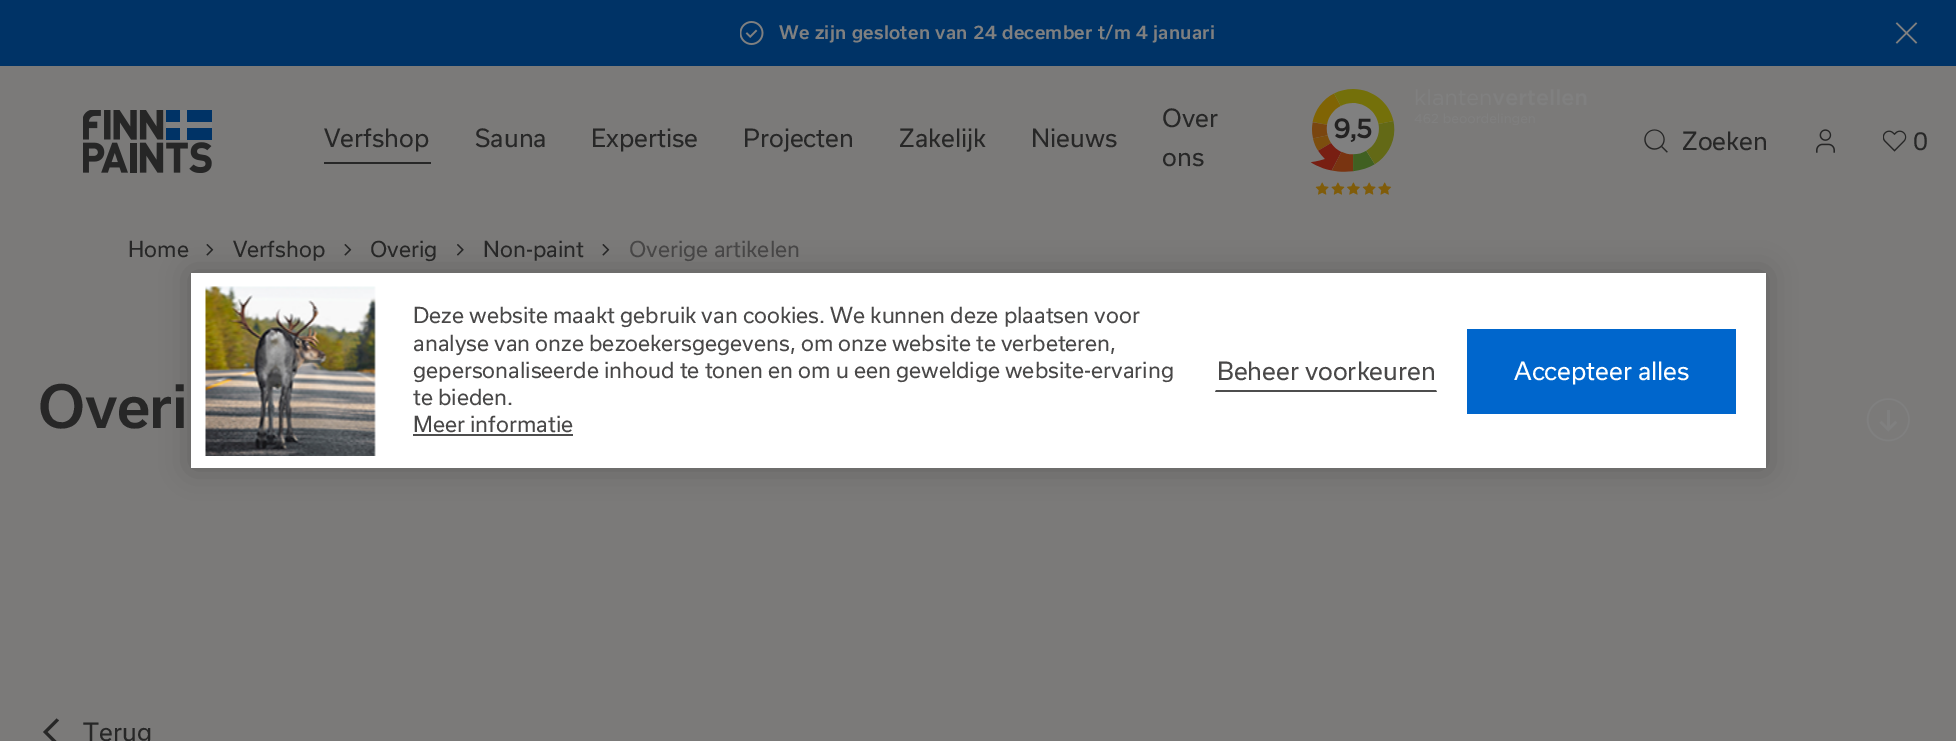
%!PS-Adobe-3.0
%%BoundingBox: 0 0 1956 741
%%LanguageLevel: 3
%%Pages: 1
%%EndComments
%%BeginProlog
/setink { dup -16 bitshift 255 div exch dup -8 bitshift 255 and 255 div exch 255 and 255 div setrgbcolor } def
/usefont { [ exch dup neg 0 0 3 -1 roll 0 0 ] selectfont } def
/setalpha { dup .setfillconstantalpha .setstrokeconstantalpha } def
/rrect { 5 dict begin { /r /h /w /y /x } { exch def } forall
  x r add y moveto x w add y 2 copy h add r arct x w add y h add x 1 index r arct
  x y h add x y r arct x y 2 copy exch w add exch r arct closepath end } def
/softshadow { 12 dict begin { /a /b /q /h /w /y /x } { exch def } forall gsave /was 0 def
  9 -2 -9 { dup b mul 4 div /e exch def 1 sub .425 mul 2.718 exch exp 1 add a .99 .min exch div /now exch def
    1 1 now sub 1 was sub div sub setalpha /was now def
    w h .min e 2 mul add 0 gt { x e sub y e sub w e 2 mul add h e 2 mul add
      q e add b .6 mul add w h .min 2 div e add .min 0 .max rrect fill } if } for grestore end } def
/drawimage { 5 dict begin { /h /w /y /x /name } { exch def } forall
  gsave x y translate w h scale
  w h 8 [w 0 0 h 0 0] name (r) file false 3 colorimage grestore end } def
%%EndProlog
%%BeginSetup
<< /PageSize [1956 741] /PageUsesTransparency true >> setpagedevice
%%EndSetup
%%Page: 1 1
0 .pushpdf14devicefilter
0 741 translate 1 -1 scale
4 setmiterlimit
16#7B7A79 setink
0 0 1956 741 rectfill
16#003366 setink
0 0 1956 66 rectfill
(img1.raw) 740 21 24 24 drawimage
/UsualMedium-Medium 18 usefont
16#808080 setink
779 39 moveto 0.3 0 (We zijn gesloten van 24 december t/m 4 januari) ashow
(img2.raw) 1895 22 23 22 drawimage
(img3.raw) 83 110 129 63 drawimage
/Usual-Regular 24 usefont
16#272727 setink
324 147 moveto (Verfshop) show
324 162 107 2 rectfill
[
    [(Sauna) 475 147]
    [(Expertise) 591 147]
    [(Projecten) 743 147]
    [(Zakelijk) 899 147]
    [(Nieuws) 1031 147]
    [(Over) 1162 127]
    [(ons) 1162 166]
] { aload pop moveto show } forall
(img4.raw) 1310 89 277 106 drawimage
(img5.raw) 1644 129 24 24 drawimage
1682 150 moveto (Zoeken) show
(img6.raw) 1816 129 19 24 drawimage
(img7.raw) 1883 130 24 22 drawimage
1913 150 moveto (0) show
/Usual-Regular 21 usefont
128 257 moveto (Home) show
(img8.raw) 206 244 8 12 drawimage
233 257 moveto (Verfshop) show
(img8.raw) 344 244 8 12 drawimage
370 257 moveto (Overig) show
(img9.raw) 457 244 7 12 drawimage
483 257 moveto (Non-paint) show
(img8.raw) 602 244 8 12 drawimage
16#494848 setink
629 257 moveto (Overige artikelen) show
/UsualMedium-Medium 57 usefont
16#272727 setink
38 428 moveto -0.5 0 (Overi) ashow
(img10.raw) 1866 398 44 44 drawimage
56.5 718.5 moveto 59 720.5 lineto 47.5 732 lineto 59 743.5 lineto 56.5 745.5 lineto 43 732 lineto closepath fill
/Usual-Regular 24 usefont
83 741 moveto (Terug) show
16#000000 setink
191 273 1575 195 0 15 0.2 softshadow
16#FFFFFF setink
191 273 1575 195 rectfill
(img11.raw) 205 286 171 170 drawimage
/Usual-Regular 21 usefont
16#494848 setink
[
    [(Deze website maakt gebruik van cookies. We kunnen deze plaatsen voor) 413 323]
    [(analyse van onze bezoekersgegevens, om onze website te verbeteren,) 413 351]
    [(gepersonaliseerde inhoud te tonen en om u een geweldige website-ervaring) 413 378]
    [(te bieden.) 413 405]
    [(Meer informatie) 413 432]
] { aload pop moveto show } forall
16#4D4D4D setink
413 434 160 2 rectfill
1437 392 moveto 1215 392 lineto 1216 390 lineto 1436 390 lineto closepath fill
/Usual-Regular 24 usefont
16#494848 setink
1217 380 moveto (Beheer voorkeuren) show
16#0066CC setink
1467 329 269 85 rectfill
16#FFFFFF setink
1514 380 moveto (Accepteer alles) show
.poppdf14devicefilter showpage
%%EOF
